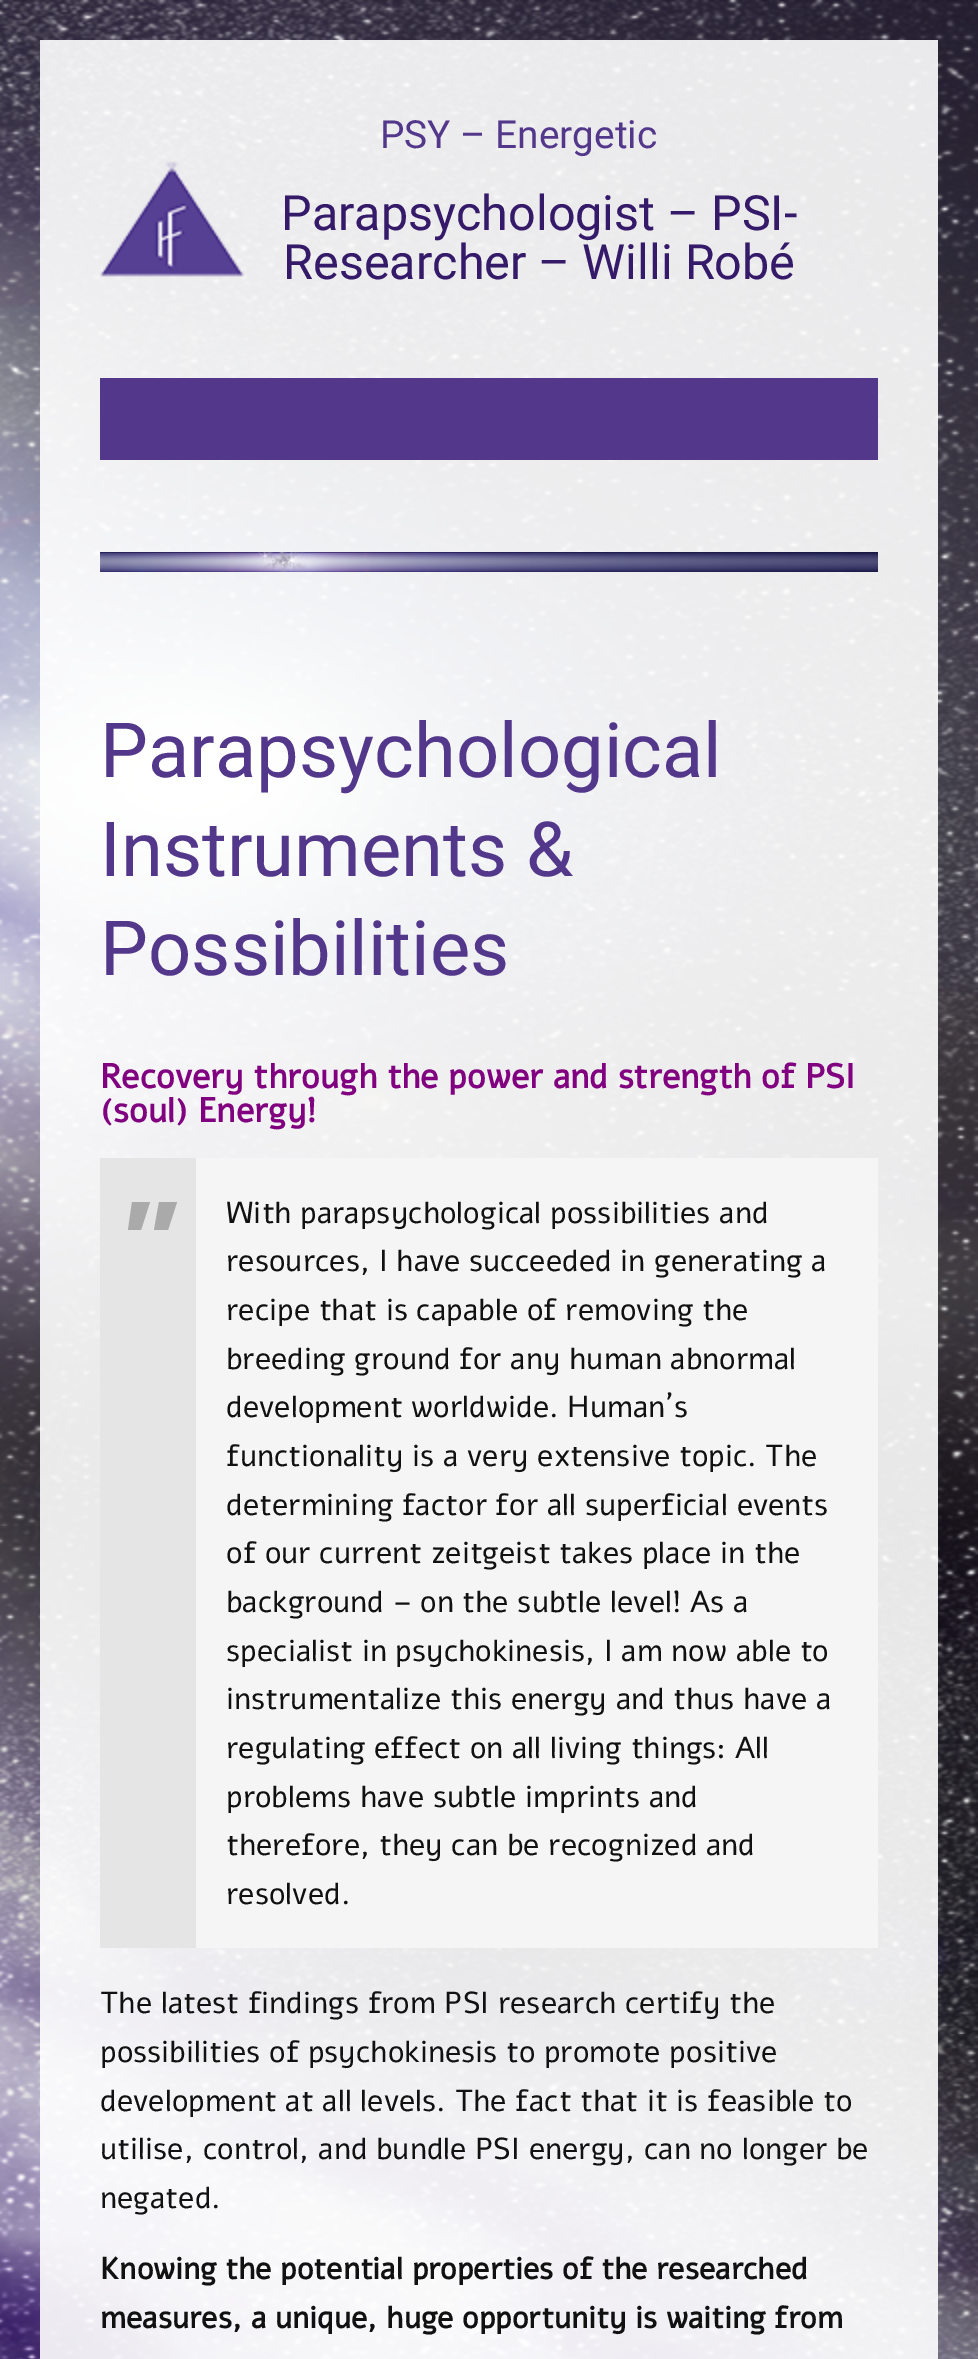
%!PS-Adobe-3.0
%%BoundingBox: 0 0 978 2359
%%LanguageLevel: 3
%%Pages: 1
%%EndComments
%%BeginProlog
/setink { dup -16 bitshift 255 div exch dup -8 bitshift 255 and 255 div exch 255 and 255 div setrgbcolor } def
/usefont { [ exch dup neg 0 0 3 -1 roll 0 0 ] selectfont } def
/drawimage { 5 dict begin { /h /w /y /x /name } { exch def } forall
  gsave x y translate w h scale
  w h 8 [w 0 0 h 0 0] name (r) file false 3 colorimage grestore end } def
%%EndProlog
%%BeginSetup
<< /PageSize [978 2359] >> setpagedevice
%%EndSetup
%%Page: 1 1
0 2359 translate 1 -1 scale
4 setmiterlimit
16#FFFFFF setink
0 0 978 2359 rectfill
(img1.raw) 0 0 978 2359 drawimage
/Roboto-Regular 38.75 usefont
16#53378B setink
380 148 moveto (PSY – Energetic) show
(img2.raw) 100 161 144 116 drawimage
/Roboto-Regular 48.5 usefont
16#341A69 setink
281 230 moveto (Parapsychologist – PSI-) show
283 279 moveto (Researcher – Willi Robé) show
16#53378B setink
100 378 778 82 rectfill
(img3.raw) 100 552 778 20 drawimage
/Roboto-Regular 76 usefont
[
    [(Parapsychological) 100 777]
    [(Instruments &) 100 876]
    [(Possibilities) 100 975]
] { aload pop moveto show } forall
/Alef-Bold 34.2 usefont
16#800080 setink
100 1088 moveto (Recovery through the power and strength of PSI) show
100 1122 moveto (\(soul\) Energy!) show
16#F5F5F5 setink
196 1158 682 790 rectfill
16#E5E5E5 setink
100 1158 96 790 rectfill
16#AAAAAA setink
128 1230 moveto 132 1202 lineto 150 1202 lineto 141 1230 lineto closepath 154 1230 moveto 159 1202 lineto 177 1202 lineto 168 1230 lineto closepath fill
/Alef-Regular 30.4 usefont
16#111111 setink
[
    [(With parapsychological possibilities and) 226 1223]
    [(resources, I have succeeded in generating a) 226 1271]
    [(recipe that is capable of removing the) 226 1320]
    [(breeding ground for any human abnormal) 226 1369]
    [(development worldwide. Human´s) 226 1417]
    [(functionality is a very extensive topic. The) 226 1466]
    [(determining factor for all superficial events) 226 1515]
    [(of our current zeitgeist takes place in the) 226 1563]
    [(background – on the subtle level! As a) 226 1612]
    [(specialist in psychokinesis, I am now able to) 226 1661]
    [(instrumentalize this energy and thus have a) 226 1709]
    [(regulating effect on all living things: All) 226 1758]
    [(problems have subtle imprints and) 226 1807]
    [(therefore, they can be recognized and) 226 1855]
    [(resolved.) 226 1904]
    [(The latest findings from PSI research certify the) 100 2013]
    [(possibilities of psychokinesis to promote positive) 100 2062]
    [(development at all levels. The fact that it is feasible to) 100 2111]
    [(utilise, control, and bundle PSI energy, can no longer be) 100 2159]
    [(negated.) 100 2208]
] { aload pop moveto show } forall
/Alef-Bold 30.4 usefont
100 2279 moveto (Knowing the potential properties of the researched) show
100 2328 moveto (measures, a unique, huge opportunity is waiting from) show
showpage
%%EOF
